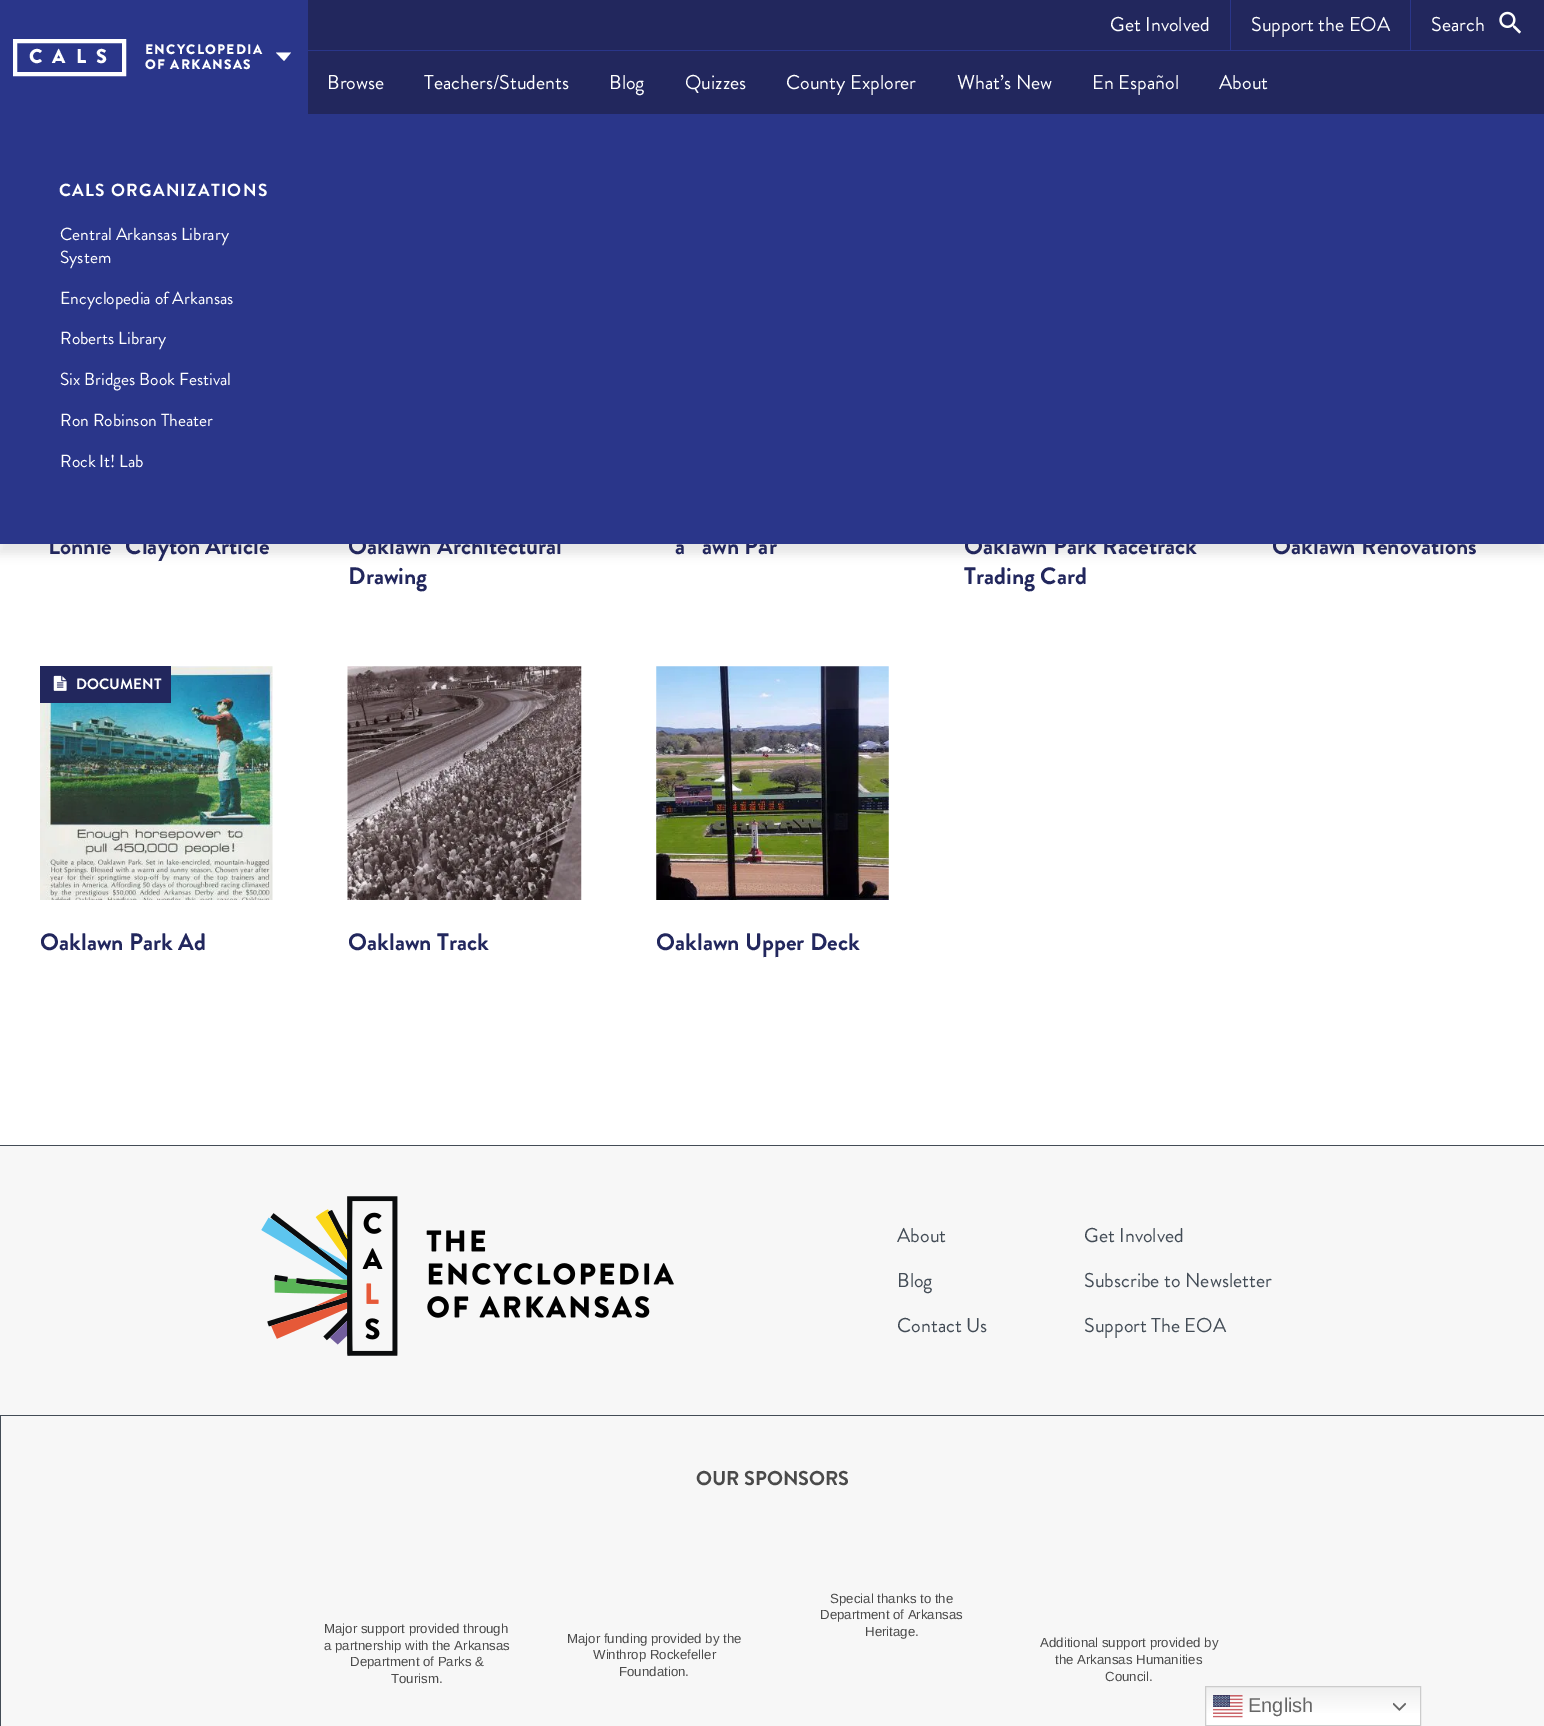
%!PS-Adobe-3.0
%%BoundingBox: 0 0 1544 1726
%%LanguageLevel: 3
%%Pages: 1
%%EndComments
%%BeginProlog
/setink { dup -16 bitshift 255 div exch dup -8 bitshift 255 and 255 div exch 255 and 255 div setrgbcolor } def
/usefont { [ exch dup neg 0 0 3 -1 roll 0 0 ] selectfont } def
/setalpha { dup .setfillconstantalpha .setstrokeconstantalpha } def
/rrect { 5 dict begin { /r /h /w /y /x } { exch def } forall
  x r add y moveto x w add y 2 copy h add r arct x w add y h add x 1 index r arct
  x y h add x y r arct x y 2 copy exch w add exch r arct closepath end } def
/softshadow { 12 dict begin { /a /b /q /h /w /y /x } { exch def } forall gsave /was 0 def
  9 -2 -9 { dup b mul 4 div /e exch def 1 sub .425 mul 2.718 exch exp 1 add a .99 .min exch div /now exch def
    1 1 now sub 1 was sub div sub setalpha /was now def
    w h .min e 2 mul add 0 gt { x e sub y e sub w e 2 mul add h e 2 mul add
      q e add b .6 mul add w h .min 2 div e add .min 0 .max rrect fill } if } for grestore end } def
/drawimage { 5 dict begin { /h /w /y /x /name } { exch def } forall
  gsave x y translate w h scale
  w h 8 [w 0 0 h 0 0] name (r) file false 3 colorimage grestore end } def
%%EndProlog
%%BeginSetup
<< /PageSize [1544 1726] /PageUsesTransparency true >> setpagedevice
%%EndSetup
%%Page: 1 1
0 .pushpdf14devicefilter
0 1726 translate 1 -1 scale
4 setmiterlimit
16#FFFFFF setink
0 0 1544 1726 rectfill
16#0A0A0A setink
-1 125 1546 429 0 5 0.1 softshadow
16#22275D setink
308 0 1236 114 rectfill
16#2A368A setink
0 0 308 115 rectfill
16#FFFFFF setink
4 setlinewidth
15 41 109 33 rectstroke
/BrandonGrotesque-Black 20 usefont
29 63 moveto 10 0 (CALS) ashow
/BrandonGrotesque-Black 13.75 usefont
145 54 moveto 1.25 0 (ENCYCLOPEDIA) ashow
145 69 moveto 1.25 0 (OF ARKANSAS) ashow
276 52.5 moveto 291 52.5 lineto 284 61 lineto closepath fill
/BrandonGrotesque-Bold 23.75 usefont
16#22275D setink
[
    [(Lonnie" Clayton Article) 48 554]
    [(Oaklawn Architectural) 348 554]
    [(awn Par) 702 554]
    [(Oaklawn Park Racetrack) 964 554]
    [(Oaklawn Renovations) 1272 554]
] { aload pop moveto show } forall
16#2A368A setink
0 115 1544 429 rectfill
/BrandonGrotesque-Bold 17.5 usefont
16#FFFFFF setink
59 196 moveto 1.25 0 (CALS ORGANIZATIONS) ashow
/BrandonGrotesque-Regular 17.5 usefont
[
    [(Central Arkansas Library) 60 240]
    [(System) 60 263]
    [(Encyclopedia of Arkansas) 60 304]
    [(Roberts Library) 60 344]
    [(Six Bridges Book Festival) 60 385]
    [(Ron Robinson Theater) 60 426]
    [(Rock It! Lab) 60 467]
] { aload pop moveto show } forall
16#2A368A setink
308 50 1236 1 rectfill
/BrandonGrotesque-Regular 20 usefont
16#FFFFFF setink
1110 31 moveto (Get Involved) show
16#2A368A setink
1230 0 1 50 rectfill
16#FFFFFF setink
1251 31 moveto (Support the EOA) show
16#2A368A setink
1410 0 1 50 rectfill
16#FFFFFF setink
1431 31 moveto (Search) show
(img1.raw) 1499 11 22 23 drawimage
16#2A368A setink
308 114 1236 1 rectfill
16#FFFFFF setink
[
    [(Browse) 327 89]
    [(Teachers/Students) 424 89]
    [(Blog) 609 89]
    [(Quizzes) 685 89]
    [(County Explorer) 786 89]
    [(What’s New) 957 89]
    [(En Español) 1092 89]
    [(About) 1219 89]
] { aload pop moveto show } forall
/BrandonGrotesque-Bold 23.75 usefont
16#22275D setink
[
    [(Drawing) 348 584]
    [(a) 675 554]
    [(Trading Card) 964 584]
] { aload pop moveto show } forall
(img2.raw) 40 666 233 234 drawimage
40 666 131 37 rectfill
(img3.raw) 53 675 14 16 drawimage
/BrandonGrotesque-Bold 15 usefont
16#FFFFFF setink
76 689 moveto (DOCUMENT) show
/BrandonGrotesque-Bold 23.75 usefont
16#22275D setink
40 950 moveto (Oaklawn Park Ad) show
(img4.raw) 347 666 235 234 drawimage
348 950 moveto (Oaklawn Track) show
(img5.raw) 656 666 233 234 drawimage
656 950 moveto (Oaklawn Upper Deck) show
[
    [0 1146 1544 580 16#F7F7F7]
    [0 1145 1544 1 16#434C56]
    [0 1415 1544 1 16#434C56]
] { aload pop setink rectfill } forall
(img6.raw) 261 1196 413 160 drawimage
/BrandonGrotesque-Regular 20 usefont
[
    [(About) 897 1242]
    [(Get Involved) 1084 1242]
    [(Blog) 897 1287]
    [(Subscribe to Newsletter) 1084 1287]
    [(Contact Us) 897 1332]
    [(Support The EOA) 1084 1332]
] { aload pop moveto show } forall
0 1416 1 310 rectfill
/BrandonGrotesque-Bold 20 usefont
16#4A4A4A setink
696 1485 moveto (OUR SPONSORS) show
/LiberationSans-Regular 13.25 usefont
[
    [(Special thanks to the) 830 1603]
    [(Department of Arkansas) 820 1619]
    [(Heritage.) 865 1636]
    [(Major support provided through) 324 1633]
    [(a partnership with the Arkansas) 324 1650]
    [(Department of Parks &) 350 1666]
    [(Tourism.) 391 1683]
    [(Major funding provided by the) 567 1643]
    [(Winthrop Rockefeller) 593 1659]
    [(Foundation.) 619 1676]
    [(Additional support provided by) 1040 1647]
    [(the Arkansas Humanities) 1055 1664]
    [(Council.) 1105 1681]
] { aload pop moveto show } forall
gsave 1206 1687 moveto 1420 1687 lineto 1420 1725 lineto 1206 1725 lineto closepath clip newpath
<< /ShadingType 2 /ColorSpace /DeviceRGB /Coords [1313 1686 1313 1726] /Extend [true true] /Function << /FunctionType 3 /Domain [0 1] /Functions [<< /FunctionType 2 /Domain [0 1] /C0 [0.937 0.937 0.937] /C1 [1 1 1] /N 1 >> << /FunctionType 2 /Domain [0 1] /C0 [1 1 1] /C1 [1 1 1] /N 1 >>] /Bounds [0.7] /Encode [0 1 0 1] >> >> shfill grestore
16#CCCCCC setink
1 setlinewidth
1205.5 1686.5 215 39 rectstroke
(img7.raw) 1213 1695 30 23 drawimage
/LiberationSans-Regular 20 usefont
16#666666 setink
1248 1712 moveto (English) show
(img8.raw) 1393 1702 13 9 drawimage
.poppdf14devicefilter showpage
%%EOF
